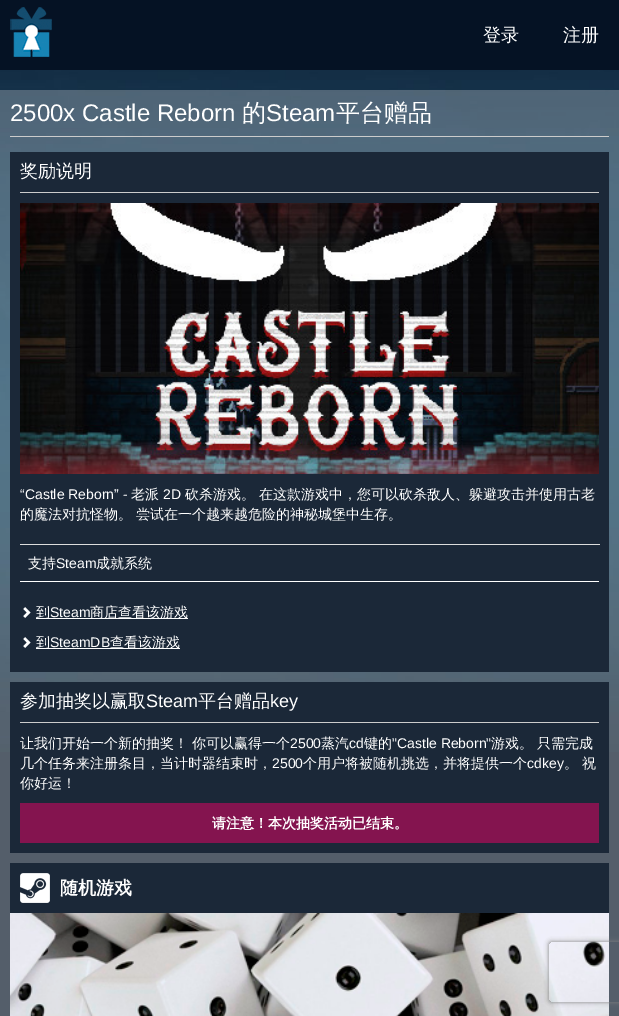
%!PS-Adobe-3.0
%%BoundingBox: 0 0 619 1016
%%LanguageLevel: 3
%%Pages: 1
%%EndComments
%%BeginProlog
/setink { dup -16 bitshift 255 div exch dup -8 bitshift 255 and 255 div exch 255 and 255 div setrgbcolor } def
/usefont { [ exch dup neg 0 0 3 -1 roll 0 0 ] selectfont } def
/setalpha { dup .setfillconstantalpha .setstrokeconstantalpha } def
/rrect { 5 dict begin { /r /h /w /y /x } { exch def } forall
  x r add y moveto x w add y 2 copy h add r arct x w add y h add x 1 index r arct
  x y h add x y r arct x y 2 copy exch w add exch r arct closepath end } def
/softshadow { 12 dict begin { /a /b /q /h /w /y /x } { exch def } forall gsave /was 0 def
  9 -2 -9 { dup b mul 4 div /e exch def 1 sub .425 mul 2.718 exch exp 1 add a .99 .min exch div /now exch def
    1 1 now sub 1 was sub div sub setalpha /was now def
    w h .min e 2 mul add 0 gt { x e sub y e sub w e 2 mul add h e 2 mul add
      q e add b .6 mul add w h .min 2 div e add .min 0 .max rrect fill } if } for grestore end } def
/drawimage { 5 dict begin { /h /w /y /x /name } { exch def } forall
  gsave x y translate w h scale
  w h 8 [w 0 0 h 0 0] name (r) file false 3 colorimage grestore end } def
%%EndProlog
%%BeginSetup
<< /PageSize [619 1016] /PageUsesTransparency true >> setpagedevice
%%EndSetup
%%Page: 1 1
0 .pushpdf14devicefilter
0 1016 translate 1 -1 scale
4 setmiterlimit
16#1B2838 setink
0 0 619 1016 rectfill
(img1.raw) 0 70 619 682 drawimage
16#051224 setink
0 0 619 70 rectfill
(img2.raw) 10 7 42 50 drawimage
/WenQuanYiZenHei-Medium 18 usefont
16#FFFFFF setink
483 41 moveto (登录) show
563 41 moveto (注册) show
0.25 setalpha
0 90 619 926 rectfill
1 setalpha
16#CCCCCC setink
10 136 599 1 rectfill
/LiberationSans-Regular 24 usefont
16#FFFFFF setink
10 121 moveto (2500x Castle Reborn) show
/WenQuanYiZenHei-Medium 24 usefont
242 121 moveto (的) show
/LiberationSans-Regular 24 usefont
266 121 moveto (Steam) show
/WenQuanYiZenHei-Medium 24 usefont
336 121 moveto (平台赠品) show
16#1B2838 setink
10 152 599 520 rectfill
16#CCCCCC setink
20 192 579 1 rectfill
/WenQuanYiZenHei-Medium 18 usefont
16#FFFFFF setink
20 177 moveto (奖励说明) show
(img3.raw) 20 203 579 271 drawimage
/LiberationSans-Regular 14 usefont
20 499 moveto (“Castle Reborn” -) show
/WenQuanYiZenHei-Medium 14 usefont
131 499 moveto (老派) show
/LiberationSans-Regular 14 usefont
163 499 moveto (2D) show
/WenQuanYiZenHei-Medium 14 usefont
[
    [(砍杀游戏。) 185 499]
    [(在这款游戏中，您可以砍杀敌人、躲避攻击并使用古老) 259 499]
    [(的魔法对抗怪物。 尝试在一个越来越危险的神秘城堡中生存。) 20 519]
] { aload pop moveto show } forall
20 581 579 1 rectfill
16#DDDDDD setink
20 544 580 1 rectfill
16#FFFFFF setink
28 568 moveto (支持) show
/LiberationSans-Regular 14 usefont
56 568 moveto (Steam) show
/WenQuanYiZenHei-Medium 14 usefont
96 568 moveto (成就系统) show
(img4.raw) 23 607 8 11 drawimage
36 618 152 1 rectfill
36 617 moveto (到) show
/LiberationSans-Regular 14 usefont
50 617 moveto (Steam) show
/WenQuanYiZenHei-Medium 14 usefont
90 617 moveto (商店查看该游戏) show
(img4.raw) 23 637 8 11 drawimage
36 648 144 1 rectfill
36 647 moveto (到) show
/LiberationSans-Regular 14 usefont
50 647 moveto (SteamDB) show
/WenQuanYiZenHei-Medium 14 usefont
110 647 moveto (查看该游戏) show
16#1B2838 setink
10 682 599 171 rectfill
16#CCCCCC setink
20 722 579 1 rectfill
/WenQuanYiZenHei-Medium 18 usefont
16#FFFFFF setink
20 707 moveto (参加抽奖以赢取) show
/LiberationSans-Regular 18 usefont
146 707 moveto (Steam) show
/WenQuanYiZenHei-Medium 18 usefont
198 707 moveto (平台赠品) show
/LiberationSans-Regular 18 usefont
270 707 moveto (key) show
/WenQuanYiZenHei-Medium 14 usefont
20 748 moveto (让我们开始一个新的抽奖！) show
192 748 moveto (你可以赢得一个) show
/LiberationSans-Regular 14 usefont
290 748 moveto (2500) show
/WenQuanYiZenHei-Medium 14 usefont
321 748 moveto (蒸汽) show
/LiberationSans-Regular 14 usefont
349 748 moveto (cd) show
/WenQuanYiZenHei-Medium 14 usefont
364 748 moveto (键的) show
/LiberationSans-Regular 14 usefont
392 748 moveto ("Castle Reborn") show
/WenQuanYiZenHei-Medium 14 usefont
[
    [(游戏。) 491 748]
    [(只需完成) 537 748]
    [(几个任务来注册条目，当计时器结束时，) 20 768]
] { aload pop moveto show } forall
/LiberationSans-Regular 14 usefont
272 768 moveto (2500) show
/WenQuanYiZenHei-Medium 14 usefont
303 768 moveto (个用户将被随机挑选，并将提供一个) show
/LiberationSans-Regular 14 usefont
527 768 moveto (cdkey) show
/WenQuanYiZenHei-Medium 14 usefont
564 768 moveto (。 祝) show
20 788 moveto (你好运！) show
16#84144F setink
20 803 579 40 rectfill
/WenQuanYiZenHei-Bold 14 usefont
16#FFFFFF setink
212 828 moveto (请注意！本次抽奖活动已结束。) show
16#1B2838 setink
10 863 599 50 rectfill
(img5.raw) 20 873 30 30 drawimage
/WenQuanYiZenHei-Bold 18 usefont
16#FFFFFF setink
60 894 moveto (随机游戏) show
(img6.raw) 10 913 599 103 drawimage
gsave
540 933 moveto 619 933 lineto 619 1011 lineto 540 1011 lineto closepath 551 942 moveto 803 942 lineto 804 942 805 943 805 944 curveto 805 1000 lineto 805 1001 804 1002 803 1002 curveto 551 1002 lineto 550 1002 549 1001 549 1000 curveto 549 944 lineto 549 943 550 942 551 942 curveto closepath eoclip newpath
16#808080 setink
549 942 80 60 2 2.5 1 softshadow
grestore
.poppdf14devicefilter showpage
%%EOF
